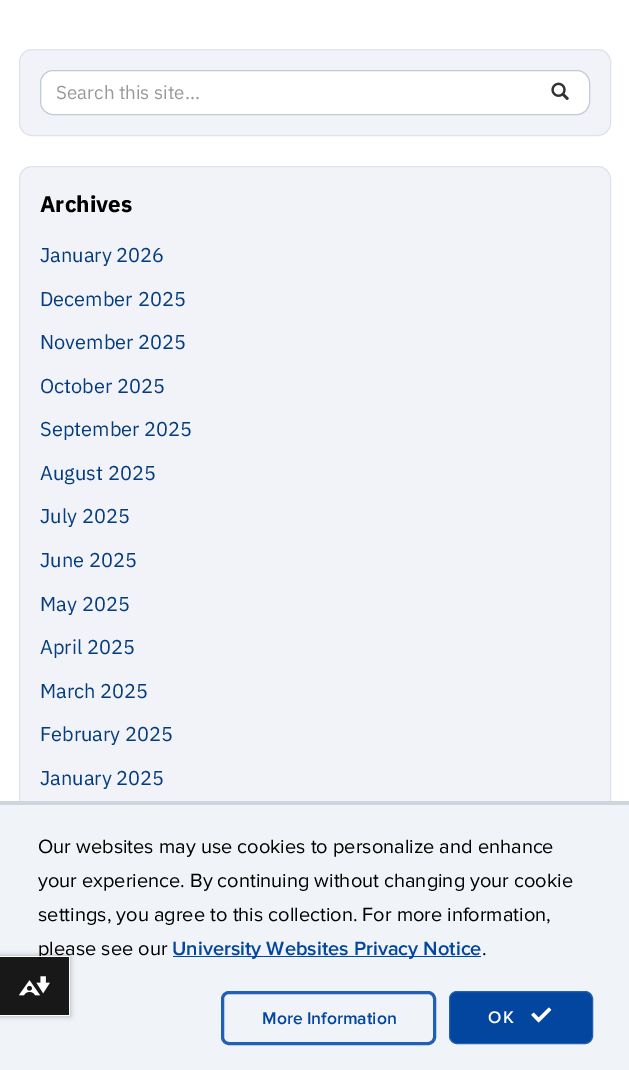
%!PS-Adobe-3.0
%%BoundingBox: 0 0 629 1070
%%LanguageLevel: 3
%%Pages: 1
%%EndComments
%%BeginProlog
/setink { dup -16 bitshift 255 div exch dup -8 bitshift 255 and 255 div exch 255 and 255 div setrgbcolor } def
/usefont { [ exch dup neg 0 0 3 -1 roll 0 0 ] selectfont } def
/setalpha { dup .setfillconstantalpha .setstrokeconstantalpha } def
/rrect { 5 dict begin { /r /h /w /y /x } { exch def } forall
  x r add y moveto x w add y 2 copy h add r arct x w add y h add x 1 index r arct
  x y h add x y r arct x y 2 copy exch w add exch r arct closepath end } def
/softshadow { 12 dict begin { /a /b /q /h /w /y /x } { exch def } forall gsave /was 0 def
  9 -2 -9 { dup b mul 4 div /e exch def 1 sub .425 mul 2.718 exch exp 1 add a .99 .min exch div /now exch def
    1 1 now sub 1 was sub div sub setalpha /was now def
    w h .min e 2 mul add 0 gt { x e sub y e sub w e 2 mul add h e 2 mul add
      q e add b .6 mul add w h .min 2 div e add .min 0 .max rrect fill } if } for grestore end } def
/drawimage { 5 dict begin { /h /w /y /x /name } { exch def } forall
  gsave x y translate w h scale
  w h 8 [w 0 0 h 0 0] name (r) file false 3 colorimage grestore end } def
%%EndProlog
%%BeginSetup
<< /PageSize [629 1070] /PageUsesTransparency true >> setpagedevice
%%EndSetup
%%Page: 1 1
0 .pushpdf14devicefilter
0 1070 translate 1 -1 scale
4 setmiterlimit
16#FFFFFF setink
0 0 629 1070 rectfill
16#F1F3F8 setink
19.5 49.5 591 86 12.5 rrect gsave fill grestore
16#DEE2EC setink
stroke
16#FFFFFF setink
40.5 70.5 549 44 12.5 rrect gsave fill grestore
16#C1CAD7 setink
stroke
/IBMPlexSans-Regular 18.75 usefont
16#999999 setink
56 99 moveto (Search this site...) show
(img1.raw) 551 82 18 18 drawimage
16#F1F3F8 setink
19.5 166.5 591 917 12.5 rrect gsave fill grestore
16#DEE2EC setink
stroke
/IBMPlexSans-Bold 22.5 usefont
16#000000 setink
40 212 moveto (Archives) show
/IBMPlexSans-Regular 20 usefont
16#053C7F setink
[
    [(January 2026) 40 262]
    [(December 2025) 40 306]
    [(November 2025) 40 349]
    [(October 2025) 40 393]
    [(September 2025) 40 436]
    [(August 2025) 40 480]
    [(July 2025) 40 523]
    [(June 2025) 40 567]
    [(May 2025) 40 611]
    [(April 2025) 40 654]
    [(March 2025) 40 698]
    [(February 2025) 40 741]
    [(January 2025) 40 785]
] { aload pop moveto show } forall
16#F0F3F7 setink
0 805 629 265 rectfill
16#CFD5DD setink
0 801 629 4 rectfill
/ProximaNova-Regular 20 usefont
16#000000 setink
[
    [(Our websites may use cookies to personalize and enhance) 38 853]
    [(your experience. By continuing without changing your cookie) 38 887]
    [(settings, you agree to this collection. For more information,) 38 921]
    [(please see our) 38 955]
] { aload pop moveto show } forall
16#03469F setink
173 956 308 1 rectfill
/ProximaNova-SemiBold 20 usefont
172 955 moveto (University Websites Privacy Notice) show
/ProximaNova-Regular 20 usefont
16#000000 setink
482 955 moveto (.) show
16#2061B6 setink
3 setlinewidth
222.5 992.5 212 51 6.5 rrect stroke
/ProximaNova-SemiBold 17.5 usefont
16#03469F setink
262 1024 moveto (More Information) show
449.5 991.5 143 52 7.5 rrect gsave fill grestore
16#2061B6 setink
1 setlinewidth
stroke
16#FFFFFF setink
488 1023 moveto 2 0 (OK) ashow
(img2.raw) 531 1007 21 16 drawimage
gsave
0 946 moveto 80 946 lineto 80 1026 lineto 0 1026 lineto closepath 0 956 moveto 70 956 lineto 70 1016 lineto 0 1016 lineto closepath eoclip newpath
16#000000 setink
0 956 70 60 0 3 0.3 softshadow
grestore
0.9 setalpha
[
    [0 957 69 58 16#000000]
] { aload pop setink rectfill } forall
1 setalpha
[
    [0 956 70 1 16#FFFFFF]
    [69 956 1 60 16#FFFFFF]
    [0 1015 70 1 16#FFFFFF]
] { aload pop setink rectfill } forall
(img3.raw) 19 976 31 20 drawimage
.poppdf14devicefilter showpage
%%EOF
